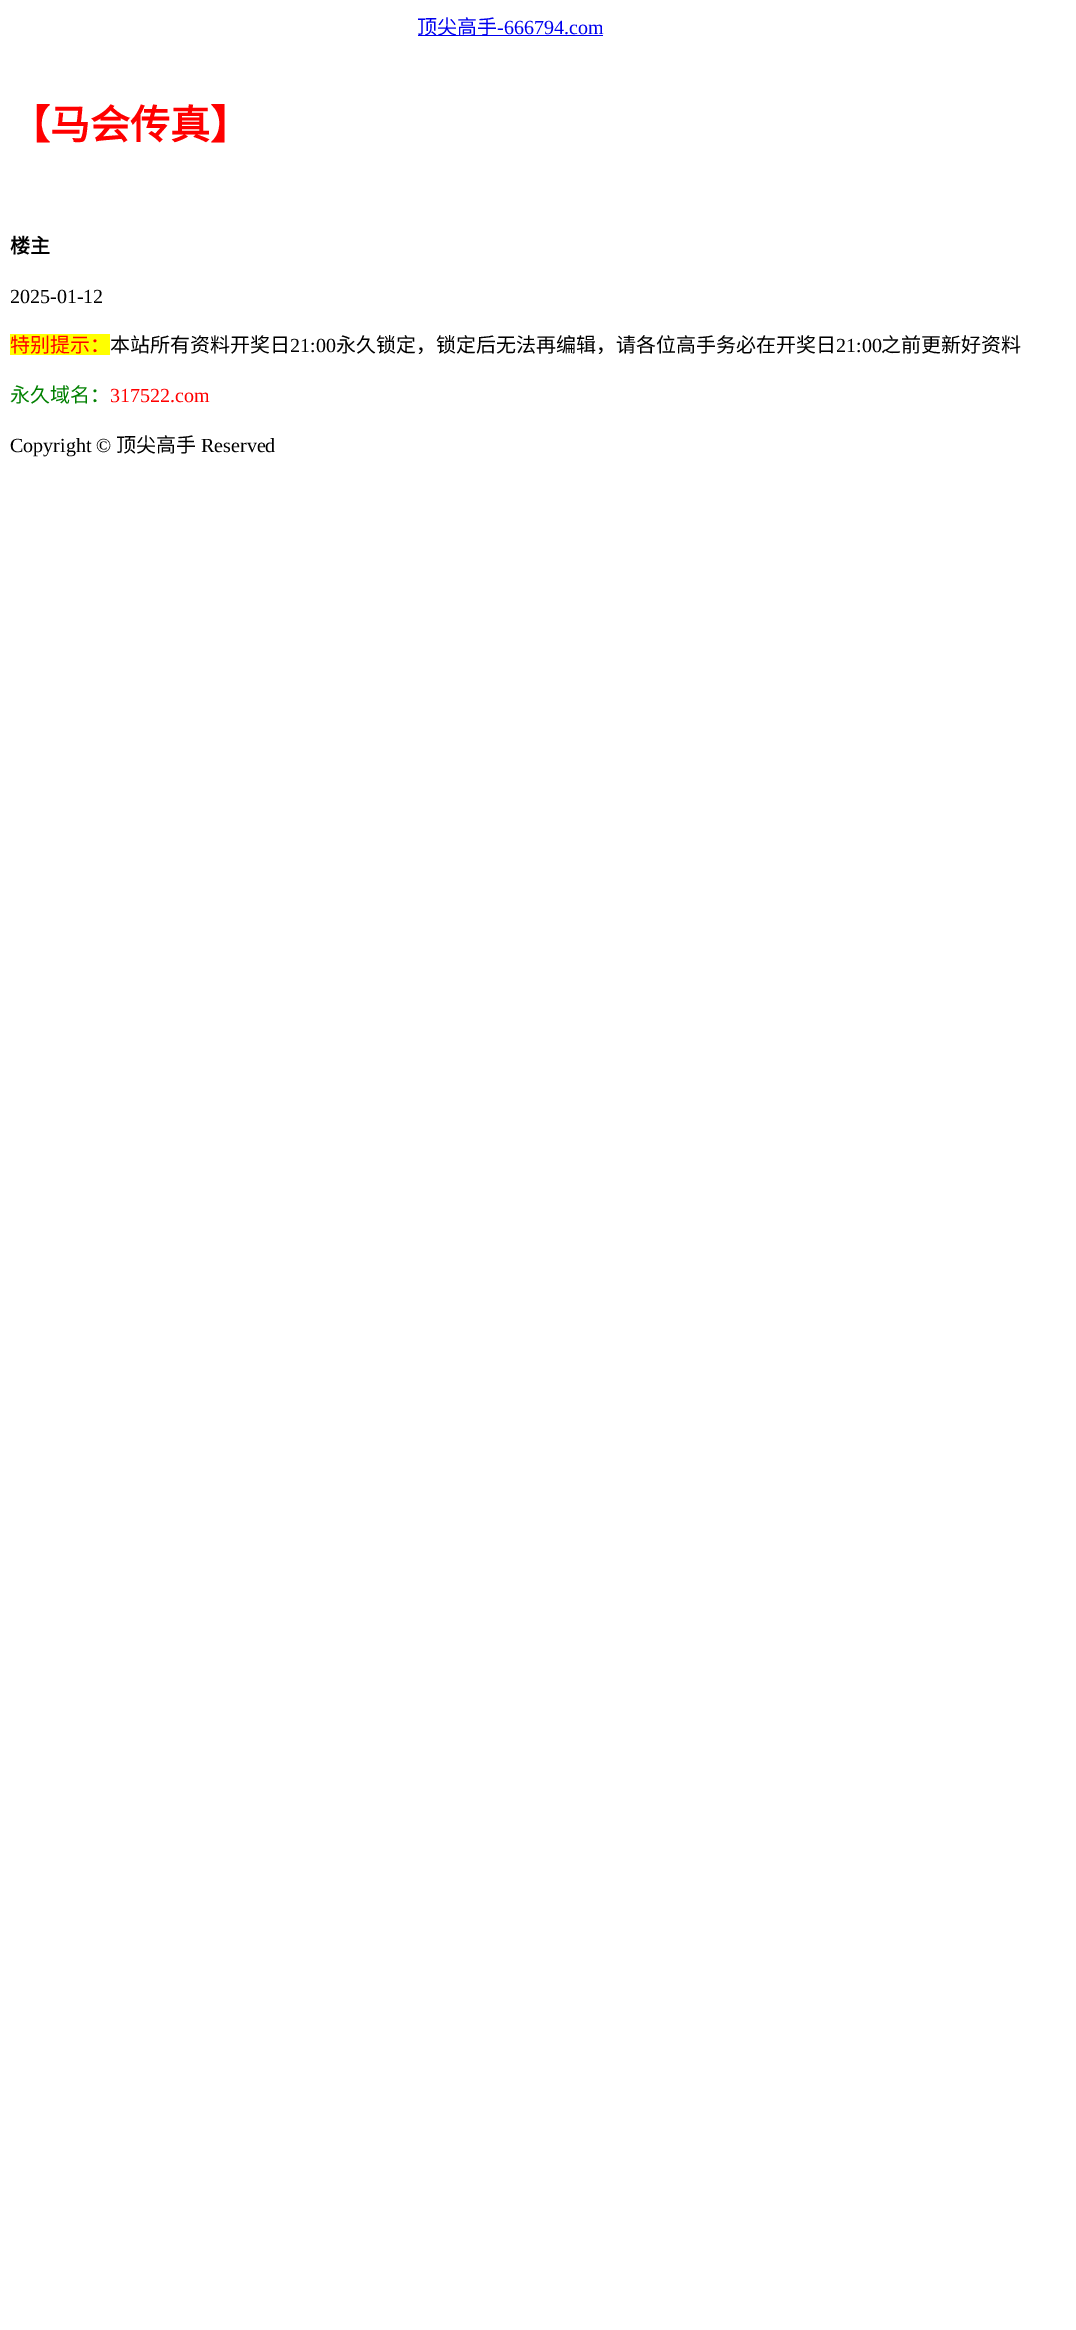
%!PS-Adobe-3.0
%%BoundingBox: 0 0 1076 2330
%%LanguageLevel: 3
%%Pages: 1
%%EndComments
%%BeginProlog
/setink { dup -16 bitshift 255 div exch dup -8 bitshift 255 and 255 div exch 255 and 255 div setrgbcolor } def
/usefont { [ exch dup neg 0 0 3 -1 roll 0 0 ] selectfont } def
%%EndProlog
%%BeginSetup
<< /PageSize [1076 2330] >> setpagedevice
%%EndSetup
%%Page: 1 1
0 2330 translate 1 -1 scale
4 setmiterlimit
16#FFFFFF setink
0 0 1076 2330 rectfill
16#0000EE setink
418 35 185 1 rectfill
/NotoSansCJKSC-Regular 20 usefont
417 34 moveto (顶尖高手) show
/LiberationSerif-Regular 20 usefont
497 34 moveto (-666794.com) show
/NotoSansCJKSC-Bold 40 usefont
16#FF0000 setink
10 139 moveto (【马会传真】) show
/NotoSansCJKSC-Bold 20 usefont
16#000000 setink
10 253 moveto (楼主) show
/LiberationSerif-Regular 20 usefont
10 303 moveto (2025-01-12) show
16#FFFF00 setink
10 334 100 21 rectfill
/NotoSansCJKSC-Regular 20 usefont
16#FF0000 setink
10 352 moveto (特别提示：) show
16#000000 setink
110 352 moveto (本站所有资料开奖日) show
/LiberationSerif-Regular 20 usefont
290 352 moveto (21:00) show
/NotoSansCJKSC-Regular 20 usefont
336 352 moveto (永久锁定，锁定后无法再编辑，请各位高手务必在开奖日) show
/LiberationSerif-Regular 20 usefont
836 352 moveto (21:00) show
/NotoSansCJKSC-Regular 20 usefont
881 352 moveto (之前更新好资料) show
16#008000 setink
10 402 moveto (永久域名：) show
/LiberationSerif-Regular 20 usefont
16#FF0000 setink
110 402 moveto (317522.com) show
16#000000 setink
10 452 moveto (Copyright ©) show
/NotoSansCJKSC-Regular 20 usefont
116 452 moveto (顶尖高手) show
/LiberationSerif-Regular 20 usefont
201 452 moveto (Reserved) show
showpage
%%EOF
